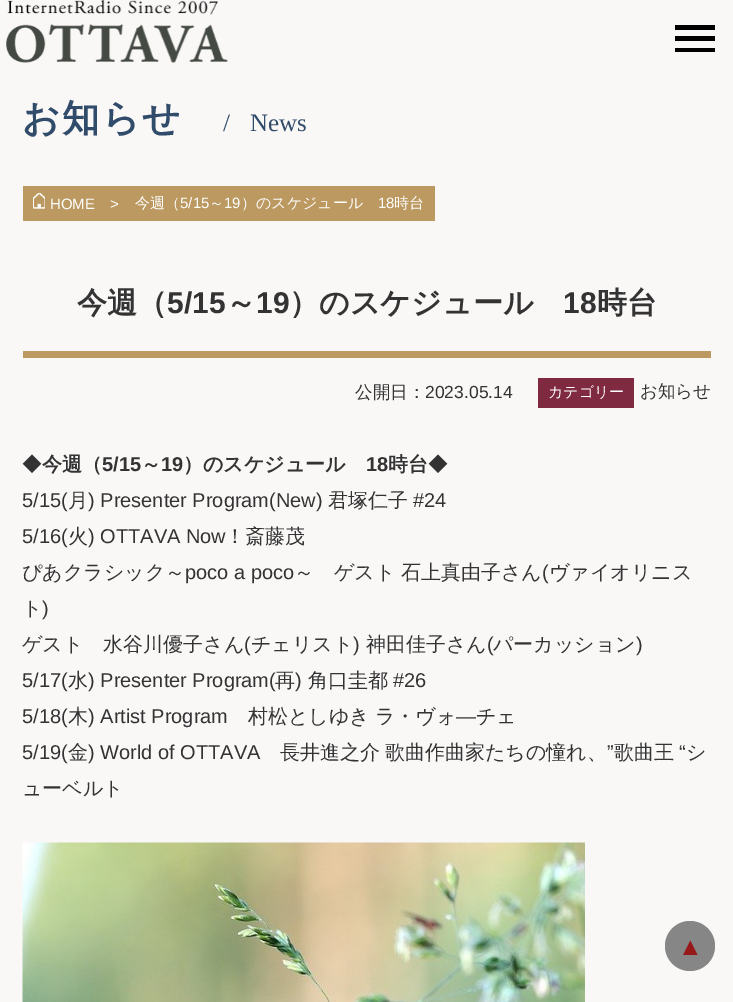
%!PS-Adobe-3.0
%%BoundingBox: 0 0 733 1002
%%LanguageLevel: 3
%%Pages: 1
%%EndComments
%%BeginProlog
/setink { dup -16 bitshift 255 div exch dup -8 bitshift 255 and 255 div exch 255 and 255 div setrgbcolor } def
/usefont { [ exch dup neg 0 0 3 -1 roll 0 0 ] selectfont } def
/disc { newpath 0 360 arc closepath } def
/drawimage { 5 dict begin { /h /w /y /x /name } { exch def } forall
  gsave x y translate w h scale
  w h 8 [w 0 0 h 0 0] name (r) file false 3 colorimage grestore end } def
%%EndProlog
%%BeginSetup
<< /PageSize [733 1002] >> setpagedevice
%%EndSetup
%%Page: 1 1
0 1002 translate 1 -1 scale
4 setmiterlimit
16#FAF7F7 setink
0 0 733 1002 rectfill
(img1.raw) 6 0 222 63 drawimage
[
    [675 25 40 5 16#000000]
    [675 36 40 5 16#000000]
    [675 48 40 4 16#000000]
] { aload pop setink rectfill } forall
/WenQuanYiZenHei-Bold 37.5 usefont
16#304C6A setink
22 131 moveto 2 0 (お知らせ) ashow
/LiberationSerif-Regular 25 usefont
223 131 moveto (/) show
250 131 moveto (News) show
16#BB9961 setink
23 186 412 35 rectfill
(img2.raw) 33 193 12 16 drawimage
/LiberationSans-Regular 15 usefont
16#FFFFFF setink
50 209 moveto (HOME) show
110 209 moveto (>) show
/WenQuanYiZenHei-Medium 15 usefont
135 208 moveto (今週（) show
/LiberationSans-Regular 15 usefont
180 208 moveto (5/15) show
/WenQuanYiZenHei-Medium 15 usefont
209 208 moveto (～) show
/LiberationSans-Regular 15 usefont
224 208 moveto (19) show
/WenQuanYiZenHei-Medium 15 usefont
241 208 moveto (）のスケジュール) show
/LiberationSans-Regular 15 usefont
378 208 moveto (18) show
/WenQuanYiZenHei-Medium 15 usefont
394 208 moveto (時台) show
16#BB9961 setink
23 351 688 7 rectfill
/WenQuanYiZenHei-Bold 30 usefont
16#333333 setink
77 313 moveto (今週（) show
/LiberationSans-Bold 30 usefont
167 313 moveto (5/15) show
/WenQuanYiZenHei-Bold 30 usefont
226 313 moveto (～) show
/LiberationSans-Bold 30 usefont
256 313 moveto (19) show
/WenQuanYiZenHei-Bold 30 usefont
289 313 moveto (）のスケジュール) show
/LiberationSans-Bold 30 usefont
563 313 moveto (18) show
/WenQuanYiZenHei-Bold 30 usefont
597 313 moveto (時台) show
/WenQuanYiZenHei-Medium 17.5 usefont
355 398 moveto (公開日：) show
/LiberationSans-Regular 17.5 usefont
425 398 moveto (2023.05.14) show
16#7F2A41 setink
538 378 96 30 rectfill
/WenQuanYiZenHei-Medium 15 usefont
16#FFFFFF setink
548 397 moveto (カテゴリー) show
/WenQuanYiZenHei-Medium 17.5 usefont
16#333333 setink
640 397 moveto (お知らせ) show
/WenQuanYiZenHei-Medium 20 usefont
22 471 moveto (◆) show
/WenQuanYiZenHei-Bold 20 usefont
42 471 moveto (今週（) show
/LiberationSans-Bold 20 usefont
102 471 moveto (5/15) show
/WenQuanYiZenHei-Bold 20 usefont
141 471 moveto (～) show
/LiberationSans-Bold 20 usefont
161 471 moveto (19) show
/WenQuanYiZenHei-Bold 20 usefont
183 471 moveto (）のスケジュール) show
/LiberationSans-Bold 20 usefont
366 471 moveto (18) show
/WenQuanYiZenHei-Bold 20 usefont
388 471 moveto (時台) show
/WenQuanYiZenHei-Medium 20 usefont
428 471 moveto (◆) show
/LiberationSans-Regular 20 usefont
22 507 moveto (5/15\() show
/WenQuanYiZenHei-Medium 20 usefont
68 507 moveto (月) show
/LiberationSans-Regular 20 usefont
88 507 moveto (\) Presenter Program\(New\)) show
/WenQuanYiZenHei-Medium 20 usefont
328 507 moveto (君塚仁子) show
/LiberationSans-Regular 20 usefont
413 507 moveto (#24) show
22 543 moveto (5/16\() show
/WenQuanYiZenHei-Medium 20 usefont
68 543 moveto (火) show
/LiberationSans-Regular 20 usefont
88 543 moveto (\) OTTAVA Now) show
/WenQuanYiZenHei-Medium 20 usefont
225 543 moveto (！斎藤茂) show
22 579 moveto (ぴあクラシック～) show
/LiberationSans-Regular 20 usefont
185 579 moveto (poco a poco) show
/WenQuanYiZenHei-Medium 20 usefont
294 579 moveto (～　ゲスト) show
401 579 moveto (石上真由子さん) show
/LiberationSans-Regular 20 usefont
542 579 moveto (\() show
/WenQuanYiZenHei-Medium 20 usefont
549 579 moveto (ヴァイオリニス) show
22 615 moveto (ト) show
/LiberationSans-Regular 20 usefont
42 615 moveto (\)) show
/WenQuanYiZenHei-Medium 20 usefont
22 651 moveto (ゲスト　水谷川優子さん) show
/LiberationSans-Regular 20 usefont
244 651 moveto (\() show
/WenQuanYiZenHei-Medium 20 usefont
251 651 moveto (チェリスト) show
/LiberationSans-Regular 20 usefont
353 651 moveto (\)) show
/WenQuanYiZenHei-Medium 20 usefont
366 651 moveto (神田佳子さん) show
/LiberationSans-Regular 20 usefont
487 651 moveto (\() show
/WenQuanYiZenHei-Medium 20 usefont
493 651 moveto (パーカッション) show
/LiberationSans-Regular 20 usefont
636 651 moveto (\)) show
22 687 moveto (5/17\() show
/WenQuanYiZenHei-Medium 20 usefont
68 687 moveto (水) show
/LiberationSans-Regular 20 usefont
88 687 moveto (\) Presenter Program\() show
/WenQuanYiZenHei-Medium 20 usefont
275 687 moveto (再) show
/LiberationSans-Regular 20 usefont
295 687 moveto (\)) show
/WenQuanYiZenHei-Medium 20 usefont
308 687 moveto (角口圭都) show
/LiberationSans-Regular 20 usefont
393 687 moveto (#26) show
22 723 moveto (5/18\() show
/WenQuanYiZenHei-Medium 20 usefont
68 723 moveto (木) show
/LiberationSans-Regular 20 usefont
88 723 moveto (\) Artist Program) show
/WenQuanYiZenHei-Medium 20 usefont
248 723 moveto (村松としゆき) show
375 723 moveto (ラ・ヴォ) show
/LiberationSans-Regular 20 usefont
456 723 moveto (―) show
/WenQuanYiZenHei-Medium 20 usefont
476 723 moveto (チェ) show
/LiberationSans-Regular 20 usefont
22 759 moveto (5/19\() show
/WenQuanYiZenHei-Medium 20 usefont
68 759 moveto (金) show
/LiberationSans-Regular 20 usefont
88 759 moveto (\) World of OTTAVA) show
/WenQuanYiZenHei-Medium 20 usefont
280 759 moveto (長井進之介) show
385 759 moveto (歌曲作曲家たちの憧れ、) show
/LiberationSans-Regular 20 usefont
607 759 moveto (”) show
/WenQuanYiZenHei-Medium 20 usefont
614 759 moveto (歌曲王) show
/LiberationSans-Regular 20 usefont
679 759 moveto (“) show
/WenQuanYiZenHei-Medium 20 usefont
686 759 moveto (シ) show
22 795 moveto (ューベルト) show
(img3.raw) 22 842 563 160 drawimage
16#868686 setink
690 946 25 disc fill
/LiberationSans-Bold 25 usefont
16#961818 setink
678 955 moveto (▲) show
showpage
%%EOF
